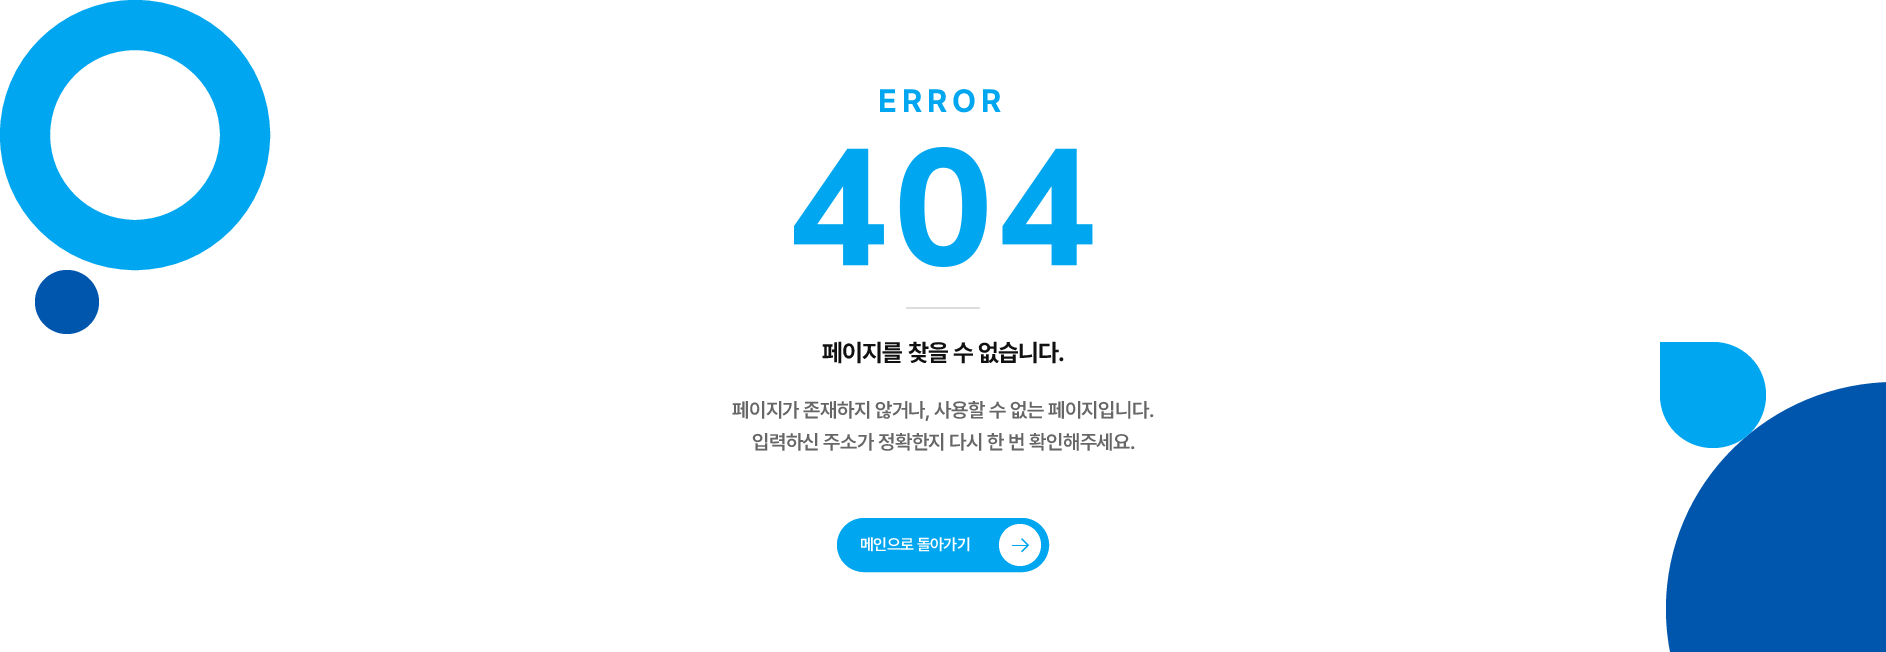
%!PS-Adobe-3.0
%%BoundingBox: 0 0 1886 652
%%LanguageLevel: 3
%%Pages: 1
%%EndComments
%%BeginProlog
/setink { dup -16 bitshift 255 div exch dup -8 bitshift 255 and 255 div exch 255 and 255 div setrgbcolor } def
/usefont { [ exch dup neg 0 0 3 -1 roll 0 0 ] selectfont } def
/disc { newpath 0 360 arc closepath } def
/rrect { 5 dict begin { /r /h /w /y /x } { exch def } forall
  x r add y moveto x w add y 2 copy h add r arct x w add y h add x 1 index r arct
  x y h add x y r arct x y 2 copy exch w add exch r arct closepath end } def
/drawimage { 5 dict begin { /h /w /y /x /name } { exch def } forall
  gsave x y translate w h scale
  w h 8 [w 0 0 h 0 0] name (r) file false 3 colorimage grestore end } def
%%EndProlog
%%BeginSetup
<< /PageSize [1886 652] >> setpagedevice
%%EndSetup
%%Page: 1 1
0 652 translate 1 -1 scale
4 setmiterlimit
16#FFFFFF setink
0 0 1886 652 rectfill
16#00A6EF setink
50 setlinewidth
135 135 110 disc stroke
16#0056AC setink
67 302 32 disc fill
/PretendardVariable-Bold 32 usefont
16#00A6EF setink
878 112 moveto 5 0 (ERROR) ashow
(img1.raw) 794 147 299 120 drawimage
16#DDDDDD setink
906 307 74 2 rectfill
/PretendardVariable-Bold 24 usefont
16#111111 setink
822 361 moveto -0.6 0 (페이지를 찾을 수 없습니다.) ashow
/PretendardVariable-SemiBold 20 usefont
16#666666 setink
732 417 moveto -0.5 0 (페이지가 존재하지 않거나, 사용할 수 없는 페이지입니다.) ashow
752 449 moveto -0.5 0 (입력하신 주소가 정확한지 다시 한 번 확인해주세요.) ashow
16#00A6EF setink
837.5 518.5 211 53 26.5 rrect gsave fill grestore
1 setlinewidth
stroke
/PretendardVariable-SemiBold 16 usefont
16#FFFFFF setink
860 550 moveto -0.5 0 (메인으로 돌아가기) ashow
1020 545 21 disc fill
(img2.raw) 1012 538 18 15 drawimage
16#0056AC setink
1896 382 moveto 2023 382 2126 483.5 2126 609 curveto 2126 734.5 2023 836 1896 836 curveto 1769 836 1666 734.5 1666 609 curveto 1666 483.5 1769 382 1896 382 curveto closepath fill
16#00A6EF setink
1660 342 moveto 1713 342 lineto 1742.5 342 1766 365.5 1766 395 curveto 1766 424.5 1742.5 448 1713 448 curveto 1683.5 448 1660 424.5 1660 395 curveto closepath fill
showpage
%%EOF
